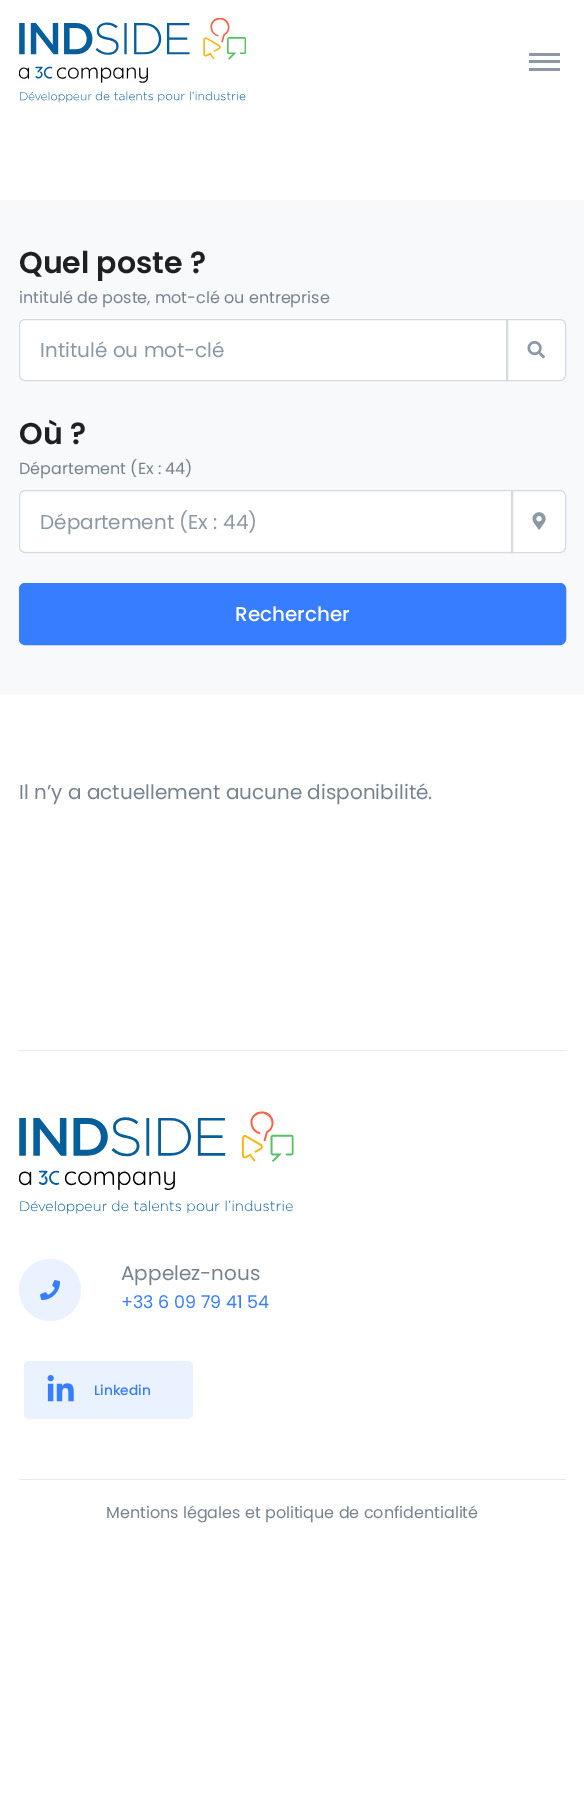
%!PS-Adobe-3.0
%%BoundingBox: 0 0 584 1810
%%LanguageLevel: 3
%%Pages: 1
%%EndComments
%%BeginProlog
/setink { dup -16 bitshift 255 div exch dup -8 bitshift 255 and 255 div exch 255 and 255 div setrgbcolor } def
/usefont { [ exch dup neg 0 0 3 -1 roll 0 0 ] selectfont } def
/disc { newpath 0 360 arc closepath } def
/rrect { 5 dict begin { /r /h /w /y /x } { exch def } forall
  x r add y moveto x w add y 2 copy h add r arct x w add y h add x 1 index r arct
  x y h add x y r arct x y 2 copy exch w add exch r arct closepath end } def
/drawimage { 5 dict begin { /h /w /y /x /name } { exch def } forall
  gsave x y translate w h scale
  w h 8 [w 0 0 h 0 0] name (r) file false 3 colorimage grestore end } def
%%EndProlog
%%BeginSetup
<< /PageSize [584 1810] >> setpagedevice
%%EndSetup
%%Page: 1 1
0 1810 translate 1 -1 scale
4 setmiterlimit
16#FFFFFF setink
0 0 584 1810 rectfill
(img1.raw) 19 18 227 85 drawimage
[
    [529 53 31 3 16#8C98A4]
    [529 60 31 3 16#8C98A4]
    [529 68 31 3 16#8C98A4]
    [0 200 584 495 16#F8F9FA]
] { aload pop setink rectfill } forall
/Poppins-SemiBold 30 usefont
16#1E2022 setink
19 273 moveto (Quel poste ?) show
/Poppins-Regular 16 usefont
16#77838F setink
19 303 moveto (intitulé de poste, mot-clé ou entreprise) show
16#FFFFFF setink
25 320 moveto 506 320 lineto 506 380 lineto 25 380 lineto 22 380 20 378 20 375 curveto 20 325 lineto 20 322 22 320 25 320 curveto closepath fill
506.5 319.5 moveto 560 319.5 lineto 563 319.5 565.5 322 565.5 325 curveto 565.5 375 lineto 565.5 378 563 380.5 560 380.5 curveto 506.5 380.5 lineto closepath gsave fill grestore
16#D5DAE2 setink
stroke
25 319.5 moveto 507.5 319.5 lineto 507.5 380.5 lineto 25 380.5 lineto 22 380.5 19.5 378 19.5 375 curveto 19.5 325 lineto 19.5 322 22 319.5 25 319.5 curveto closepath stroke
/Poppins-Regular 20 usefont
16#8C98A4 setink
40 357 moveto (Intitulé ou mot-clé) show
(img2.raw) 527 340 18 19 drawimage
/Poppins-SemiBold 30 usefont
16#1E2022 setink
19 444 moveto (Où ?) show
/Poppins-Regular 16 usefont
16#77838F setink
19 474 moveto (Département \(Ex : 44\)) show
16#FFFFFF setink
25 491 moveto 511 491 lineto 511 551 lineto 25 551 lineto 22 551 20 549 20 546 curveto 20 496 lineto 20 493 22 491 25 491 curveto closepath fill
511.5 490.5 moveto 560 490.5 lineto 563 490.5 565.5 493 565.5 496 curveto 565.5 547 lineto 565.5 550 563 552.5 560 552.5 curveto 511.5 552.5 lineto closepath gsave fill grestore
16#D5DAE2 setink
stroke
25 490.5 moveto 512.5 490.5 lineto 512.5 552.5 lineto 25 552.5 lineto 22 552.5 19.5 550 19.5 547 curveto 19.5 496 lineto 19.5 493 22 490.5 25 490.5 curveto closepath stroke
/Poppins-Regular 20 usefont
16#8C98A4 setink
40 529 moveto (Département \(Ex : 44\)) show
(img3.raw) 532 512 14 18 drawimage
16#377DFF setink
19.5 583.5 546 61 5.5 rrect gsave fill grestore
stroke
/Poppins-Medium 20 usefont
16#FFFFFF setink
235 621 moveto (Rechercher) show
/Poppins-Regular 20 usefont
16#77838F setink
19 799 moveto (Il n’y a actuellement aucune disponibilité.) show
16#E7EAF3 setink
19 1050 547 1 rectfill
(img4.raw) 19 1111 275 103 drawimage
16#EBF2FF setink
50 1290 31 disc fill
(img5.raw) 40 1280 20 20 drawimage
16#77838F setink
121 1280 moveto (Appelez-nous) show
/Poppins-Regular 17.5 usefont
16#377DFF setink
121 1308 moveto (+33 6 09 79 41 54) show
16#EBF2FF setink
24 1361 169 58 5 rrect fill
(img6.raw) 47 1375 27 27 drawimage
/Poppins-Medium 13.75 usefont
16#377DFF setink
94 1395 moveto (Linkedin) show
16#E7EAF3 setink
19 1479 547 1 rectfill
/Poppins-Regular 16 usefont
16#77838F setink
106 1518 moveto (Mentions légales et politique de confidentialité) show
showpage
%%EOF
